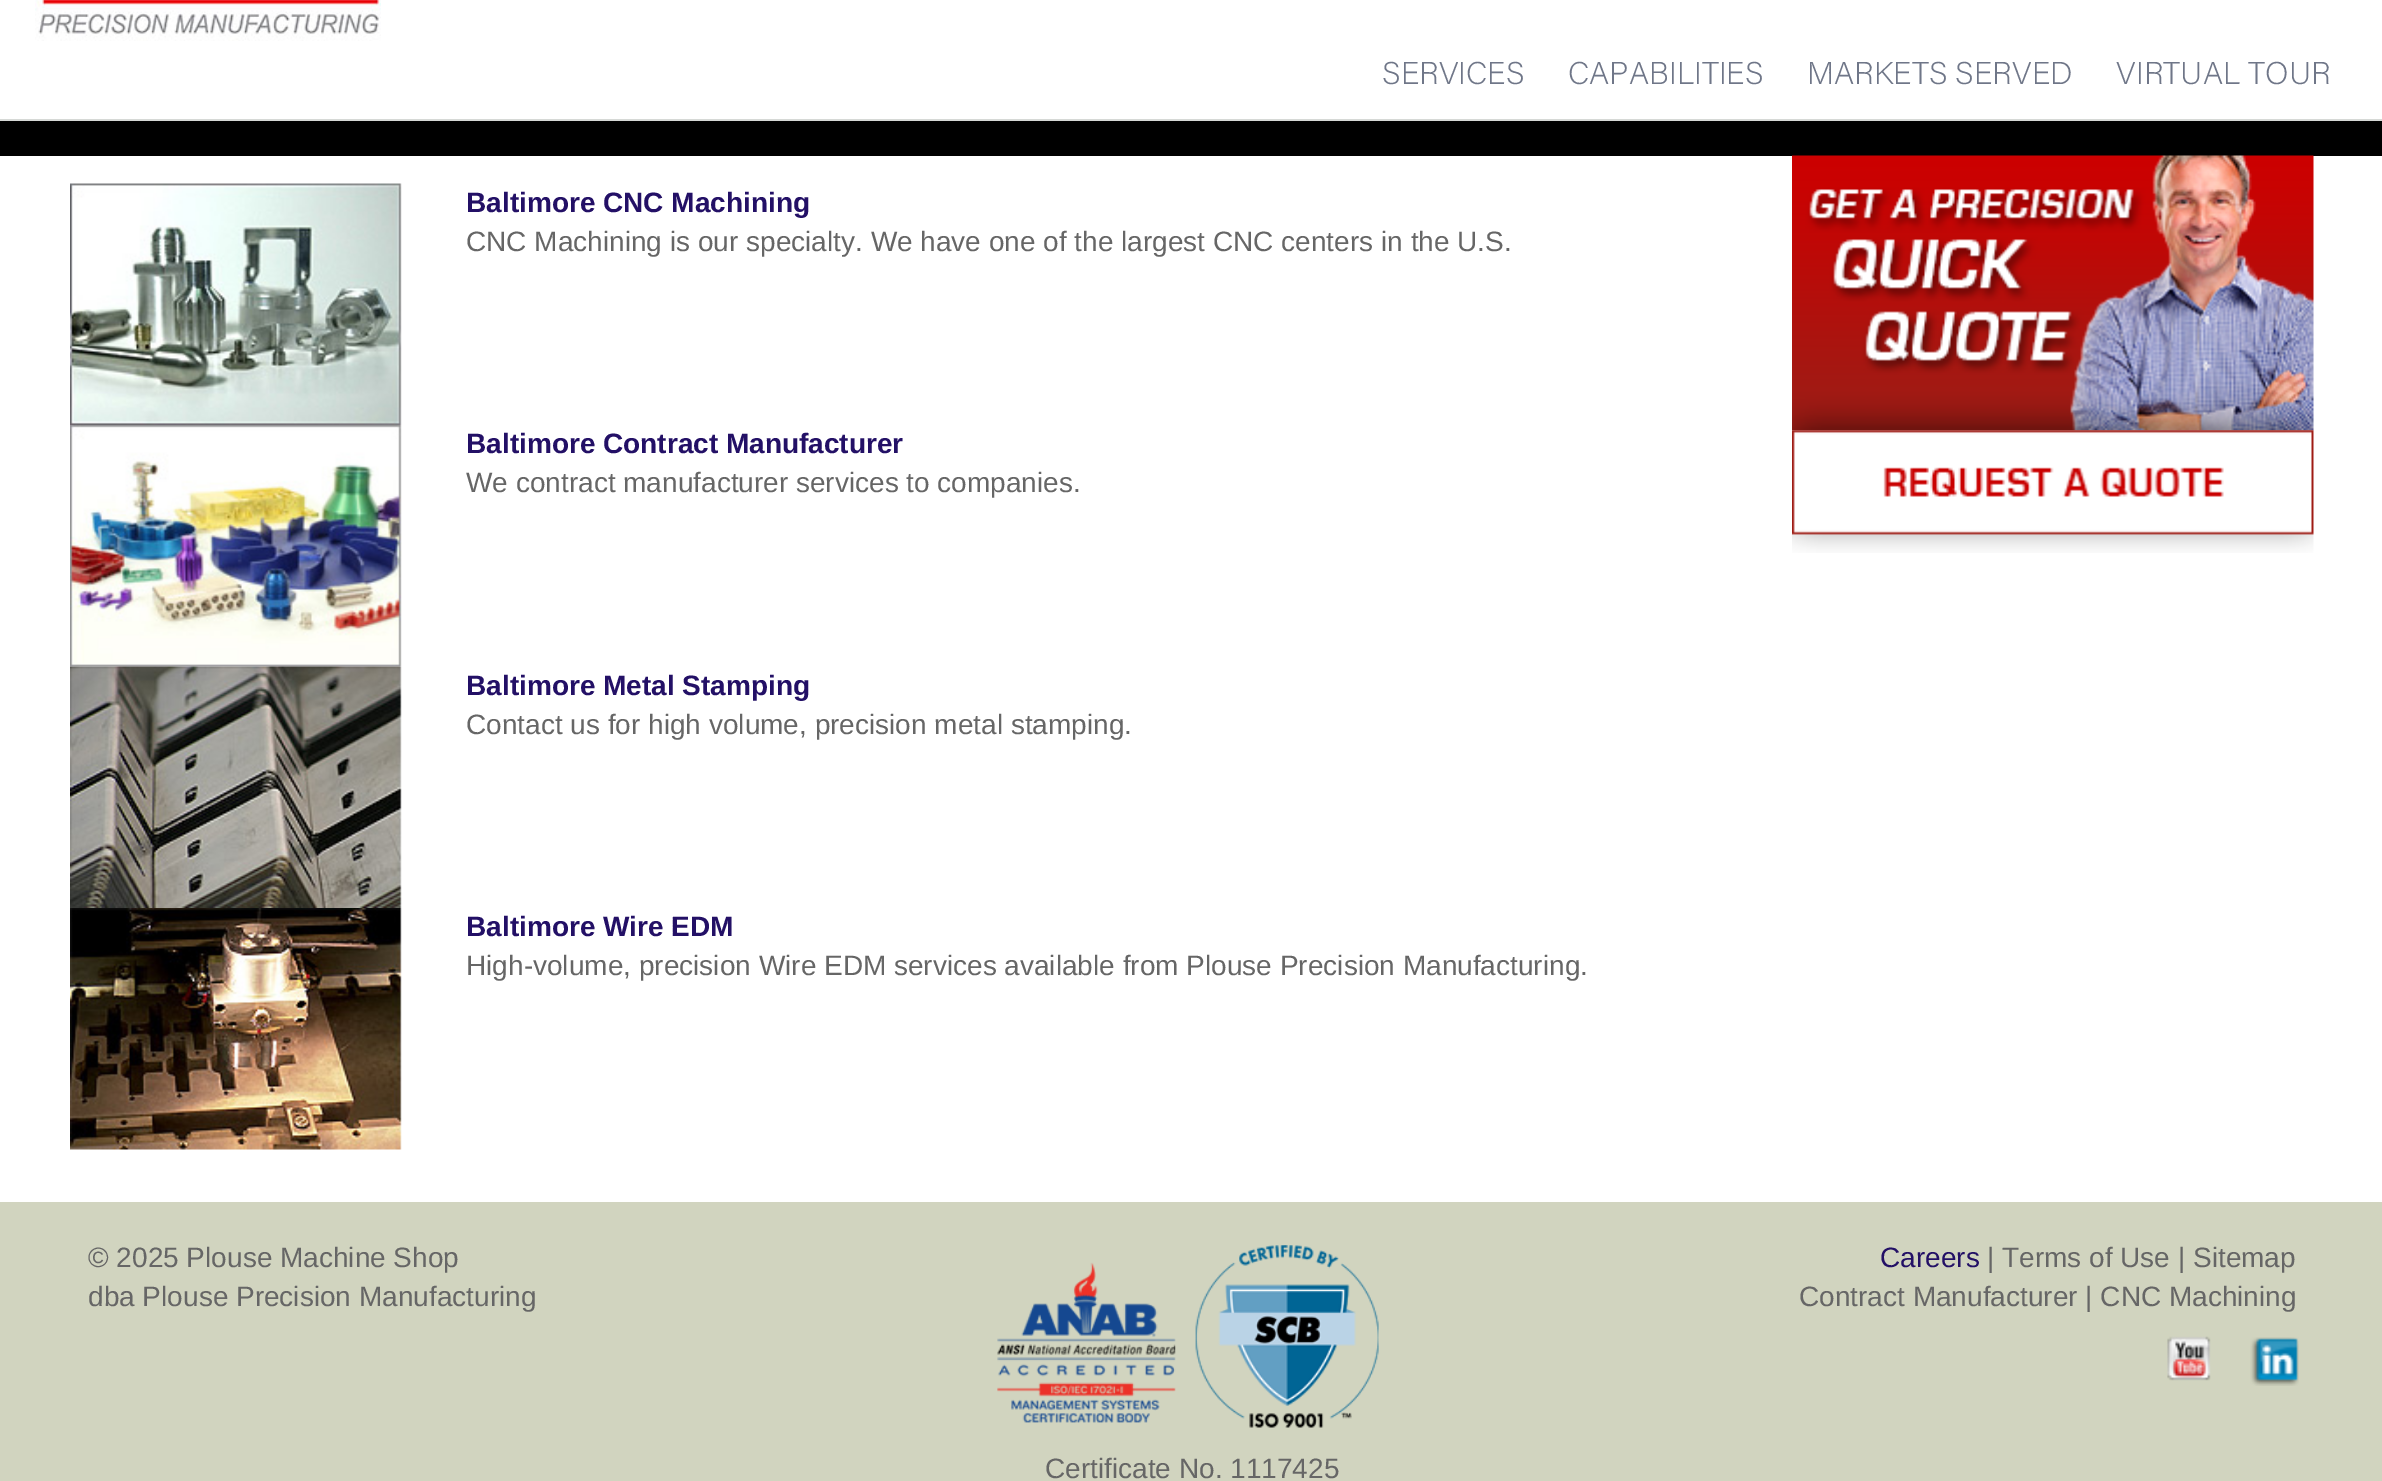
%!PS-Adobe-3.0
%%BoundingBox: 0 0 2382 1481
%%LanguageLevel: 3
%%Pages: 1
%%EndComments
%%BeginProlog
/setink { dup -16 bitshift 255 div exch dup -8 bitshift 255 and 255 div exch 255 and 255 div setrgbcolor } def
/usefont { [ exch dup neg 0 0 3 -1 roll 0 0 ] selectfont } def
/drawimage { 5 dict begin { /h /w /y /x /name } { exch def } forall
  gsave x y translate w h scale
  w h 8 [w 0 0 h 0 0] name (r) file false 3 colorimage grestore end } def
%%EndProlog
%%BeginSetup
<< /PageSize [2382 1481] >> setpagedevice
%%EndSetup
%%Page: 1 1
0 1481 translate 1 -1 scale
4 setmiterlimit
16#FFFFFF setink
0 0 2382 1481 rectfill
16#000000 setink
0 121 2382 35 rectfill
16#D6D9D6 setink
0 119 2382 2 rectfill
(img1.raw) 35 0 346 41 drawimage
/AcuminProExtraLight-ExtraLight 31.5 usefont
16#6F7688 setink
[
    [(SERVICES) 1382 84]
    [(CAPABILITIES) 1568 84]
    [(MARKETS SERVED) 1807 84]
    [(VIRTUAL TOUR) 2116 84]
] { aload pop moveto show } forall
(img2.raw) 70 183 332 242 drawimage
/LiberationSans-Bold 28 usefont
16#231066 setink
466 212 moveto (Baltimore CNC Machining) show
/LiberationSans-Regular 28 usefont
16#666666 setink
466 251 moveto (CNC Machining is our specialty. We have one of the largest CNC centers in the U.S.) show
(img3.raw) 70 425 332 242 drawimage
/LiberationSans-Bold 28 usefont
16#231066 setink
466 453 moveto (Baltimore Contract Manufacturer) show
/LiberationSans-Regular 28 usefont
16#666666 setink
466 492 moveto (We contract manufacturer services to companies.) show
(img4.raw) 70 666 332 242 drawimage
/LiberationSans-Bold 28 usefont
16#231066 setink
466 695 moveto (Baltimore Metal Stamping) show
/LiberationSans-Regular 28 usefont
16#666666 setink
466 734 moveto (Contact us for high volume, precision metal stamping.) show
(img5.raw) 70 908 332 242 drawimage
/LiberationSans-Bold 28 usefont
16#231066 setink
466 936 moveto (Baltimore Wire EDM) show
/LiberationSans-Regular 28 usefont
16#666666 setink
466 975 moveto (High-volume, precision Wire EDM services available from Plouse Precision Manufacturing.) show
(img6.raw) 1792 155 522 276 drawimage
(img7.raw) 1792 430 522 123 drawimage
16#D1D4BF setink
0 1202 2382 279 rectfill
16#666666 setink
88 1267 moveto (© 2025 Plouse Machine Shop) show
88 1306 moveto (dba Plouse Precision Manufacturing) show
16#231066 setink
1880 1267 moveto (Careers) show
16#666666 setink
1987 1267 moveto (| Terms of Use | Sitemap) show
1799 1306 moveto (Contract Manufacturer | CNC Machining) show
(img8.raw) 2167 1336 44 45 drawimage
(img9.raw) 2250 1337 49 49 drawimage
(img10.raw) 997 1245 382 183 drawimage
1045 1478 moveto (Certificate No. 1117425) show
showpage
%%EOF
